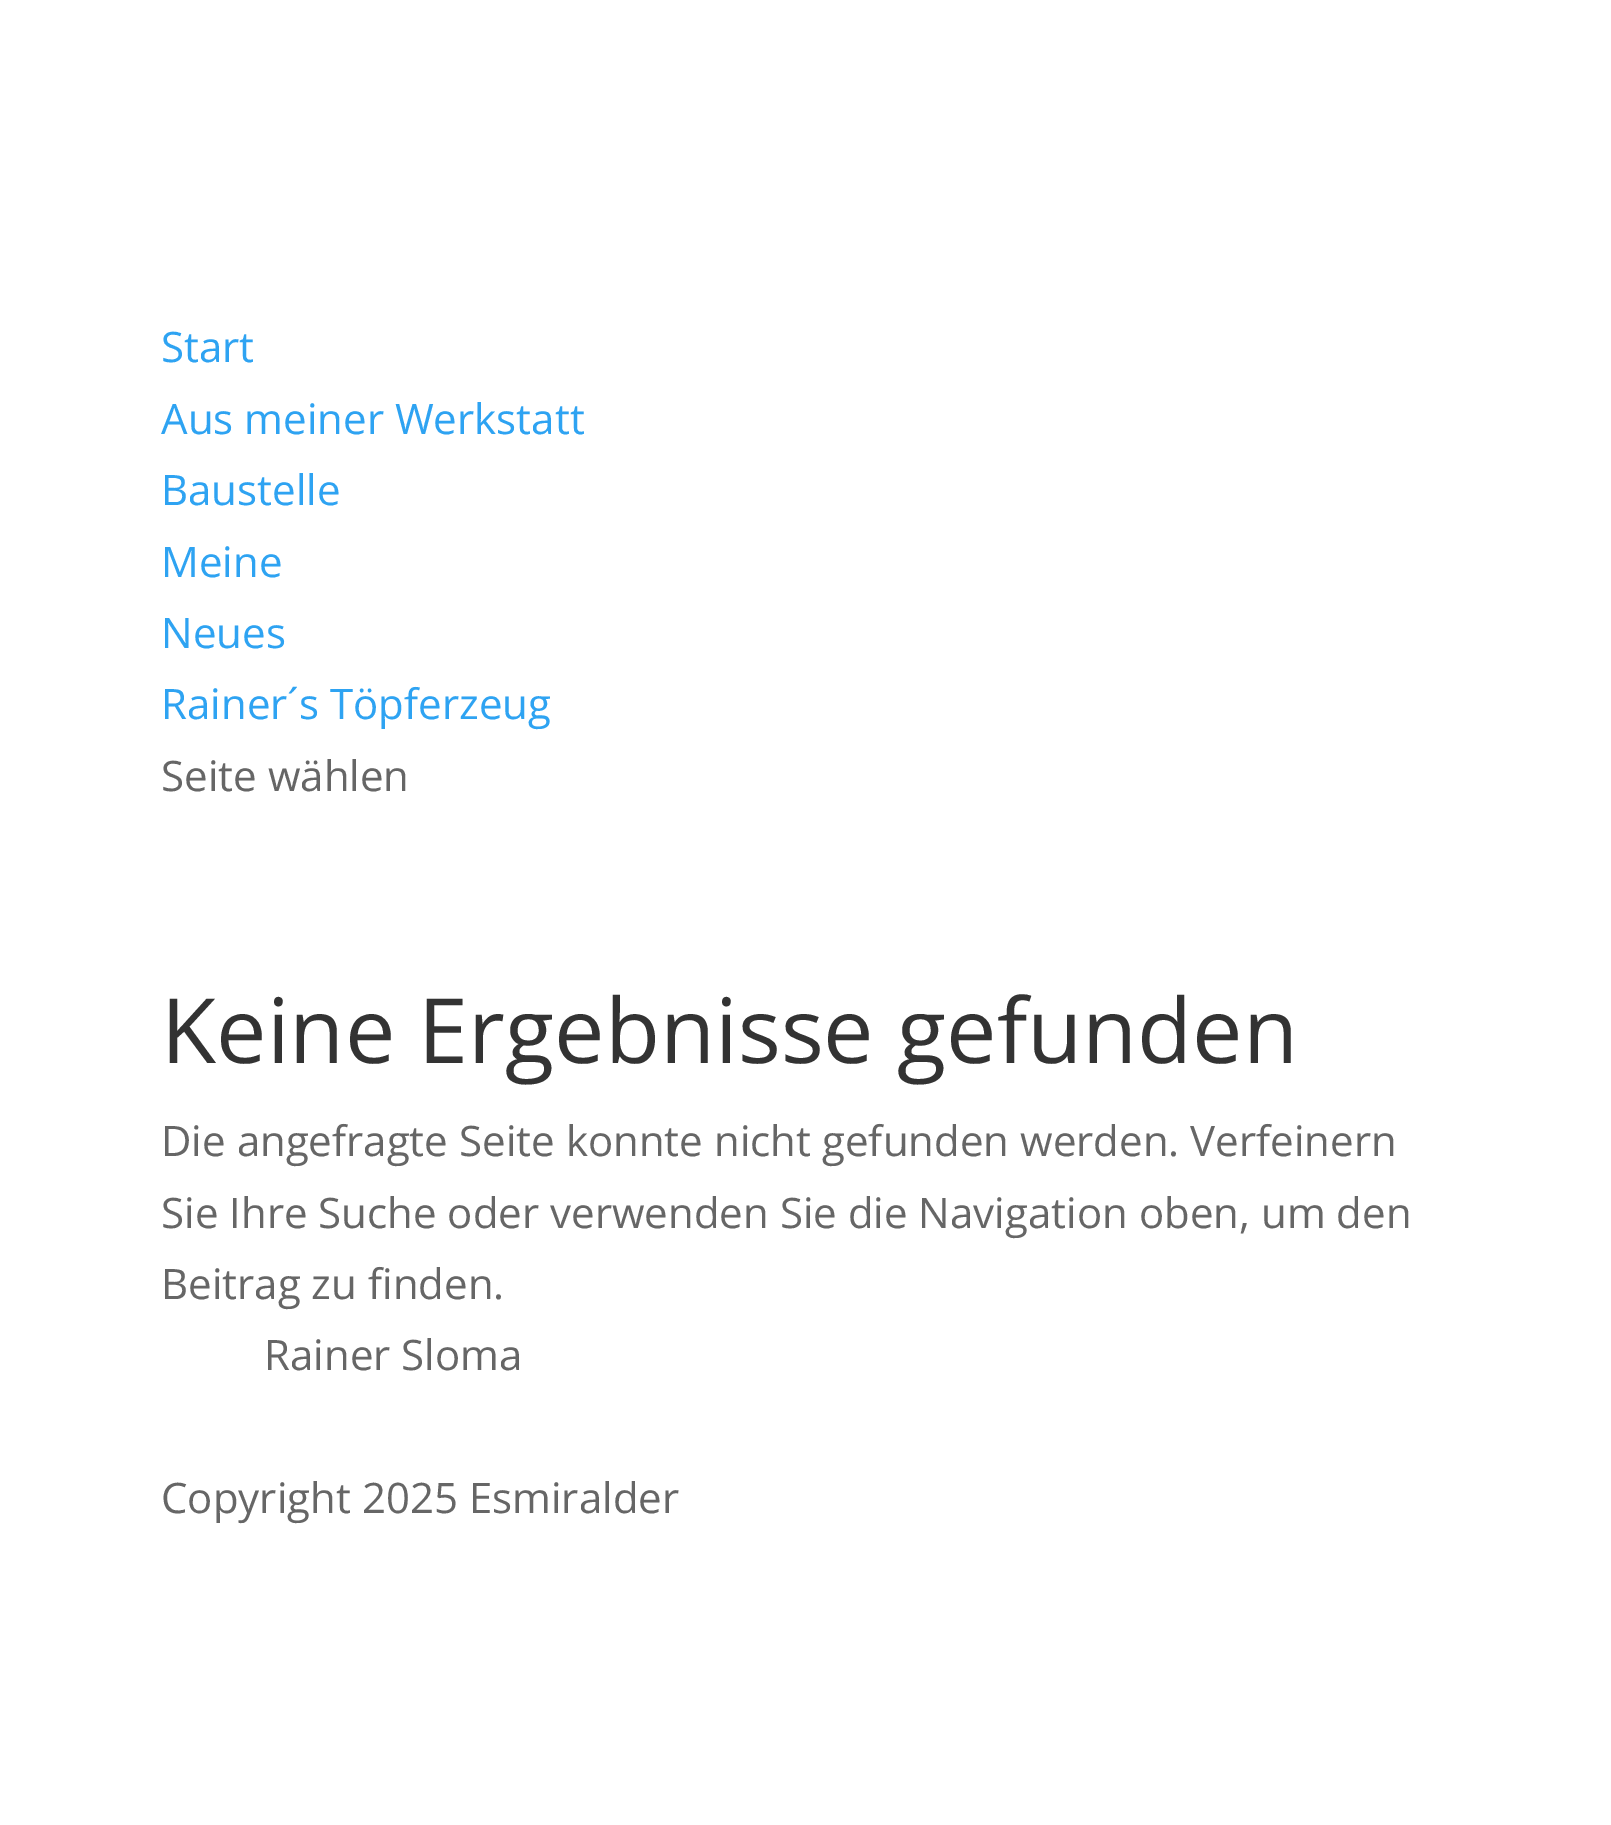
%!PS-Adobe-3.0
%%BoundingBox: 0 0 1611 1825
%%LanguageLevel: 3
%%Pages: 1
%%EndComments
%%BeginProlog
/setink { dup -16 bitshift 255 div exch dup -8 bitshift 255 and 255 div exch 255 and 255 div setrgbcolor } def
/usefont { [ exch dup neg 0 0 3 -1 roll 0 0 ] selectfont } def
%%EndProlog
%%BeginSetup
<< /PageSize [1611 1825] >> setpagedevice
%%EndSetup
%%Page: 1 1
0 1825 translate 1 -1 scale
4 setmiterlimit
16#FFFFFF setink
0 0 1611 1825 rectfill
/OpenSans-Regular 42 usefont
16#2EA3F2 setink
[
    [(Start) 161 362]
    [(Aus meiner Werkstatt) 161 434]
    [(Baustelle) 161 505]
    [(Meine) 161 577]
    [(Neues) 161 648]
    [(Rainer´s Töpferzeug) 161 719]
] { aload pop moveto show } forall
16#666666 setink
161 791 moveto (Seite wählen) show
/OpenSans-Regular 90 usefont
16#333333 setink
161 1063 moveto (Keine Ergebnisse gefunden) show
/OpenSans-Regular 42 usefont
16#666666 setink
[
    [(Die angefragte Seite konnte nicht gefunden werden. Verfeinern) 161 1156]
    [(Sie Ihre Suche oder verwenden Sie die Navigation oben, um den) 161 1228]
    [(Beitrag zu finden.) 161 1299]
    [(Rainer Sloma) 264 1370]
    [(Copyright 2025 Esmiralder) 161 1513]
] { aload pop moveto show } forall
showpage
%%EOF
